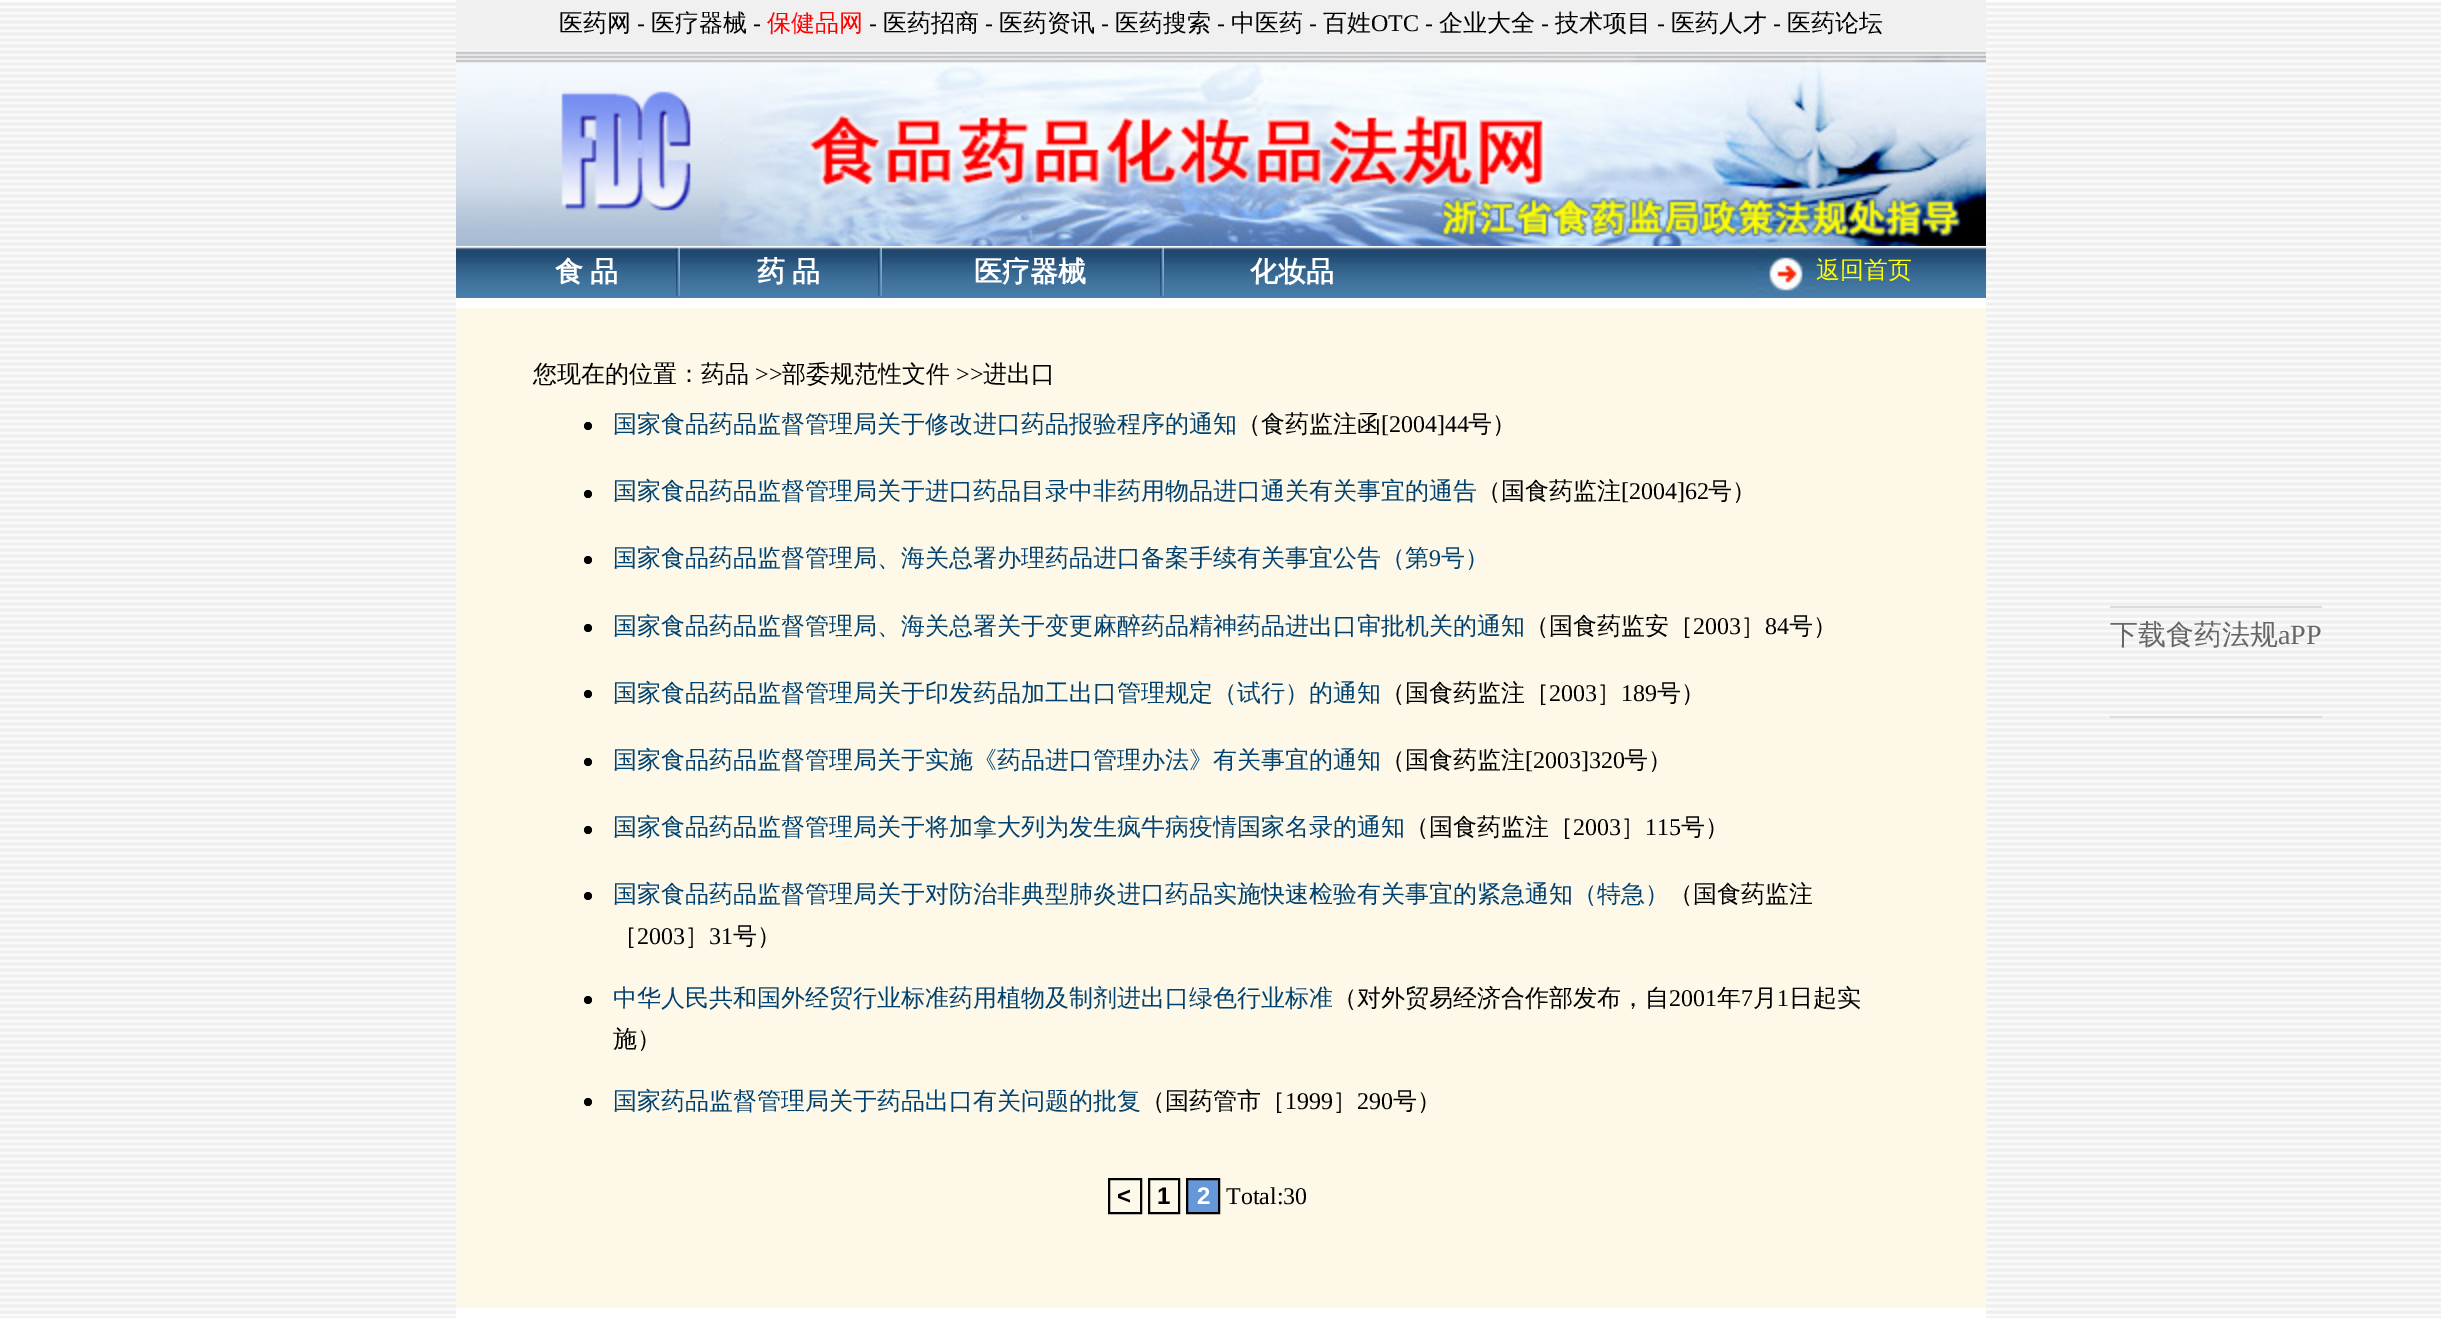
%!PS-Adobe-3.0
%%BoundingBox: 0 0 2441 1318
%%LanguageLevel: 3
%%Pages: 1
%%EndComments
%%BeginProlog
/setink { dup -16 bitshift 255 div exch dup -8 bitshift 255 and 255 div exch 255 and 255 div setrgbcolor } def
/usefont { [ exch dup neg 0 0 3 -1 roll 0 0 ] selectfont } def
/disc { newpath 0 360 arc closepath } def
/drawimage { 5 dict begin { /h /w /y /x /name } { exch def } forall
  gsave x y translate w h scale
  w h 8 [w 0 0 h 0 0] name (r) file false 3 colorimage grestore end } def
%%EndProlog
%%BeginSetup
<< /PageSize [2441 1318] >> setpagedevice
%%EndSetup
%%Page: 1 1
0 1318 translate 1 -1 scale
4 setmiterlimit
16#FFFFFF setink
0 0 2441 1318 rectfill
(img1.raw) 0 2 2441 1316 drawimage
16#F0F0F0 setink
456 0 1530 50 rectfill
/WenQuanYiZenHei-Medium 24 usefont
16#000000 setink
559 31 moveto (医药网) show
/LiberationSerif-Regular 24 usefont
637 31 moveto (-) show
/WenQuanYiZenHei-Medium 24 usefont
651 31 moveto (医疗器械) show
/LiberationSerif-Regular 24 usefont
753 31 moveto (-) show
/WenQuanYiZenHei-Medium 24 usefont
16#FF0000 setink
767 31 moveto (保健品网) show
/LiberationSerif-Regular 24 usefont
16#000000 setink
869 31 moveto (-) show
/WenQuanYiZenHei-Medium 24 usefont
883 31 moveto (医药招商) show
/LiberationSerif-Regular 24 usefont
985 31 moveto (-) show
/WenQuanYiZenHei-Medium 24 usefont
999 31 moveto (医药资讯) show
/LiberationSerif-Regular 24 usefont
1101 31 moveto (-) show
/WenQuanYiZenHei-Medium 24 usefont
1115 31 moveto (医药搜索) show
/LiberationSerif-Regular 24 usefont
1217 31 moveto (-) show
/WenQuanYiZenHei-Medium 24 usefont
1231 31 moveto (中医药) show
/LiberationSerif-Regular 24 usefont
1309 31 moveto (-) show
/WenQuanYiZenHei-Medium 24 usefont
1323 31 moveto (百姓) show
/LiberationSerif-Regular 24 usefont
1371 31 moveto (OTC -) show
/WenQuanYiZenHei-Medium 24 usefont
1439 31 moveto (企业大全) show
/LiberationSerif-Regular 24 usefont
1541 31 moveto (-) show
/WenQuanYiZenHei-Medium 24 usefont
1555 31 moveto (技术项目) show
/LiberationSerif-Regular 24 usefont
1657 31 moveto (-) show
/WenQuanYiZenHei-Medium 24 usefont
1671 31 moveto (医药人才) show
/LiberationSerif-Regular 24 usefont
1773 31 moveto (-) show
/WenQuanYiZenHei-Medium 24 usefont
1787 31 moveto (医药论坛) show
(img2.raw) 456 50 1530 196 drawimage
(img3.raw) 456 247 1530 51 drawimage
/WenQuanYiZenHei-Bold 28 usefont
16#FFFFFF setink
555 281 moveto (食) show
590 281 moveto (品) show
(img4.raw) 676 247 4 49 drawimage
757 281 moveto (药) show
792 281 moveto (品) show
(img4.raw) 878 247 4 49 drawimage
974 281 moveto (医疗器械) show
(img4.raw) 1160 247 4 49 drawimage
1250 281 moveto (化妆品) show
(img5.raw) 1756 248 60 46 drawimage
/WenQuanYiZenHei-Medium 24 usefont
16#FFFF00 setink
1816 278 moveto (返回首页) show
16#FFFFFF setink
456 298 1530 10 rectfill
16#FDF8E8 setink
456 308 1530 1000 rectfill
16#000000 setink
533 382 moveto (您现在的位置：药品) show
/LiberationSerif-Regular 24 usefont
755 382 moveto (>>) show
/WenQuanYiZenHei-Medium 24 usefont
782 382 moveto (部委规范性文件) show
/LiberationSerif-Regular 24 usefont
956 382 moveto (>>) show
/WenQuanYiZenHei-Medium 24 usefont
983 382 moveto (进出口) show
588 426 4 disc fill
16#00416F setink
613 432 moveto (国家食品药品监督管理局关于修改进口药品报验程序的通知) show
16#000000 setink
1237 432 moveto (（食药监注函) show
/LiberationSerif-Regular 24 usefont
1381 432 moveto ([2004]44) show
/WenQuanYiZenHei-Medium 24 usefont
1468 432 moveto (号）) show
588 494 4 disc fill
16#00416F setink
613 499 moveto (国家食品药品监督管理局关于进口药品目录中非药用物品进口通关有关事宜的通告) show
16#000000 setink
1477 499 moveto (（国食药监注) show
/LiberationSerif-Regular 24 usefont
1621 499 moveto ([2004]62) show
/WenQuanYiZenHei-Medium 24 usefont
1708 499 moveto (号）) show
588 560 4 disc fill
16#00416F setink
613 566 moveto (国家食品药品监督管理局、海关总署办理药品进口备案手续有关事宜公告（第) show
/LiberationSerif-Regular 24 usefont
1429 566 moveto (9) show
/WenQuanYiZenHei-Medium 24 usefont
1441 566 moveto (号）) show
16#000000 setink
588 628 4 disc fill
16#00416F setink
613 634 moveto (国家食品药品监督管理局、海关总署关于变更麻醉药品精神药品进出口审批机关的通知) show
16#000000 setink
1525 634 moveto (（国食药监安［) show
/LiberationSerif-Regular 24 usefont
1693 634 moveto (2003) show
/WenQuanYiZenHei-Medium 24 usefont
1741 634 moveto (］) show
/LiberationSerif-Regular 24 usefont
1765 634 moveto (84) show
/WenQuanYiZenHei-Medium 24 usefont
1789 634 moveto (号）) show
588 694 4 disc fill
16#00416F setink
613 701 moveto (国家食品药品监督管理局关于印发药品加工出口管理规定（试行）的通知) show
16#000000 setink
1381 701 moveto (（国食药监注［) show
/LiberationSerif-Regular 24 usefont
1549 701 moveto (2003) show
/WenQuanYiZenHei-Medium 24 usefont
1597 701 moveto (］) show
/LiberationSerif-Regular 24 usefont
1621 701 moveto (189) show
/WenQuanYiZenHei-Medium 24 usefont
1657 701 moveto (号）) show
588 762 4 disc fill
16#00416F setink
613 768 moveto (国家食品药品监督管理局关于实施《药品进口管理办法》有关事宜的通知) show
16#000000 setink
1381 768 moveto (（国食药监注) show
/LiberationSerif-Regular 24 usefont
1525 768 moveto ([2003]320) show
/WenQuanYiZenHei-Medium 24 usefont
1624 768 moveto (号）) show
588 830 4 disc fill
16#00416F setink
613 835 moveto (国家食品药品监督管理局关于将加拿大列为发生疯牛病疫情国家名录的通知) show
16#000000 setink
1405 835 moveto (（国食药监注［) show
/LiberationSerif-Regular 24 usefont
1573 835 moveto (2003) show
/WenQuanYiZenHei-Medium 24 usefont
1621 835 moveto (］) show
/LiberationSerif-Regular 24 usefont
1645 835 moveto (115) show
/WenQuanYiZenHei-Medium 24 usefont
1681 835 moveto (号）) show
588 896 4 disc fill
16#00416F setink
613 902 moveto (国家食品药品监督管理局关于对防治非典型肺炎进口药品实施快速检验有关事宜的紧急通知（特急）) show
16#000000 setink
1669 902 moveto (（国食药监注) show
613 944 moveto (［) show
/LiberationSerif-Regular 24 usefont
637 944 moveto (2003) show
/WenQuanYiZenHei-Medium 24 usefont
685 944 moveto (］) show
/LiberationSerif-Regular 24 usefont
709 944 moveto (31) show
/WenQuanYiZenHei-Medium 24 usefont
733 944 moveto (号）) show
588 1000 4 disc fill
16#00416F setink
613 1006 moveto (中华人民共和国外经贸行业标准药用植物及制剂进出口绿色行业标准) show
16#000000 setink
1333 1006 moveto (（对外贸易经济合作部发布，自) show
/LiberationSerif-Regular 24 usefont
1669 1006 moveto (2001) show
/WenQuanYiZenHei-Medium 24 usefont
1717 1006 moveto (年) show
/LiberationSerif-Regular 24 usefont
1741 1006 moveto (7) show
/WenQuanYiZenHei-Medium 24 usefont
1753 1006 moveto (月) show
/LiberationSerif-Regular 24 usefont
1777 1006 moveto (1) show
/WenQuanYiZenHei-Medium 24 usefont
1789 1006 moveto (日起实) show
613 1047 moveto (施）) show
588 1102 4 disc fill
16#00416F setink
613 1109 moveto (国家药品监督管理局关于药品出口有关问题的批复) show
16#000000 setink
1141 1109 moveto (（国药管市［) show
/LiberationSerif-Regular 24 usefont
1285 1109 moveto (1999) show
/WenQuanYiZenHei-Medium 24 usefont
1333 1109 moveto (］) show
/LiberationSerif-Regular 24 usefont
1357 1109 moveto (290) show
/WenQuanYiZenHei-Medium 24 usefont
1393 1109 moveto (号）) show
2 setlinewidth
1109 1179 32 34 rectstroke
/LiberationSans-Bold 24 usefont
1117 1204 moveto (<) show
1149 1179 30 34 rectstroke
1157 1204 moveto (1) show
16#6597D9 setink
1187 1179 moveto 1219 1179 lineto 1219 1213 lineto 1187 1213 lineto closepath gsave fill grestore
16#000000 setink
stroke
16#FFFFFF setink
1197 1204 moveto (2) show
/LiberationSerif-Regular 24 usefont
16#000000 setink
1226 1204 moveto (Total:30) show
16#DDDDDD setink
2110 606 212 2 rectfill
2110 716 212 2 rectfill
/WenQuanYiZenHei-Medium 28 usefont
16#666666 setink
2110 644 moveto (下载食药法规) show
/LiberationSerif-Regular 28 usefont
2278 644 moveto (aPP) show
16#FFFFFF setink
456 1308 1530 10 rectfill
showpage
%%EOF
